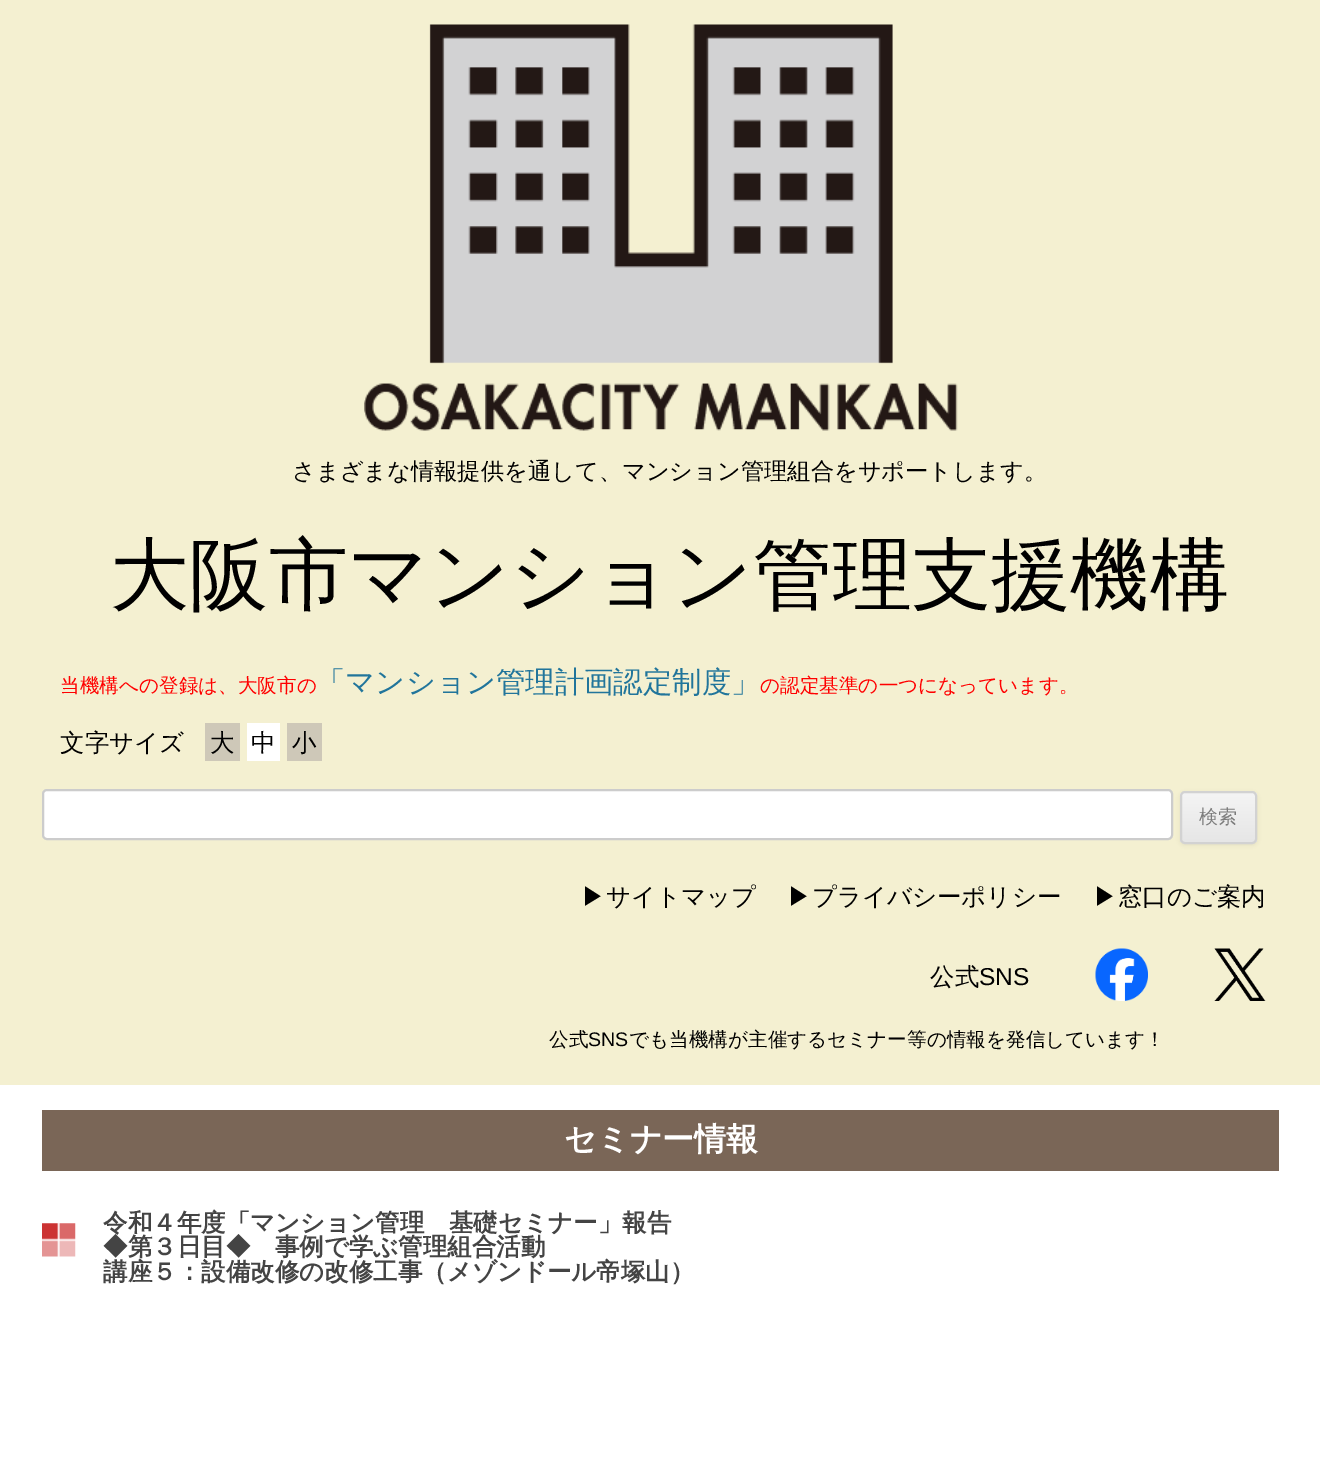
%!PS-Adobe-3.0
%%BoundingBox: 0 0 1320 1472
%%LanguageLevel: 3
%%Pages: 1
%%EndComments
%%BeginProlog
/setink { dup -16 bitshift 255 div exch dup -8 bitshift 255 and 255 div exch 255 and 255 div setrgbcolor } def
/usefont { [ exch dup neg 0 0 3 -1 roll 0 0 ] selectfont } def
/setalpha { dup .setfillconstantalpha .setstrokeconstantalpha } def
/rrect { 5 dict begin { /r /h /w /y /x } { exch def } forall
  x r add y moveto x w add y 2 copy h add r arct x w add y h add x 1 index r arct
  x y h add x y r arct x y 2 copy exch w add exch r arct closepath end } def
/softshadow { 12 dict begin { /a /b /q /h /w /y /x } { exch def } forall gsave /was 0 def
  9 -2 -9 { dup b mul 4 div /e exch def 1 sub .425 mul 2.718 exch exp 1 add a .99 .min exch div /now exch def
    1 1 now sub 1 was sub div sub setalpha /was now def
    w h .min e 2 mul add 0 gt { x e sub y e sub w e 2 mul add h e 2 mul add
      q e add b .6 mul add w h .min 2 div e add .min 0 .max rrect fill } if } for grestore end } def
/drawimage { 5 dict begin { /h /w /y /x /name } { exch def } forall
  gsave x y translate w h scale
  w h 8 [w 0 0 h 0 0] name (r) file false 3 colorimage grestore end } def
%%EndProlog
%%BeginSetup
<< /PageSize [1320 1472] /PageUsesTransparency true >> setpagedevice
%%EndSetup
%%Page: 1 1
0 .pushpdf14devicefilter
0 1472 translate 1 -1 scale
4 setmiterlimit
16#FFFFFF setink
0 0 1320 1472 rectfill
16#F4F0D1 setink
0 0 1320 1085 rectfill
(img1.raw) 364 24 594 407 drawimage
/WenQuanYiZenHei-Medium 23.25 usefont
16#000000 setink
292 479 moveto (さまざまな情報提供を通して、マンション管理組合をサポートします。) show
/WenQuanYiZenHei-Medium 79.25 usefont
110 602 moveto (大阪市マンション管理支援機構) show
/WenQuanYiZenHei-Medium 19.6 usefont
16#FF0000 setink
60 692 moveto (当機構への登録は、大阪市の) show
/WenQuanYiZenHei-Medium 29.4 usefont
16#21759B setink
316 692 moveto (「マンション管理計画認定制度」) show
/WenQuanYiZenHei-Medium 19.6 usefont
16#FF0000 setink
760 692 moveto (の認定基準の一つになっています。) show
/WenQuanYiZenHei-Medium 24.5 usefont
16#000000 setink
60 751 moveto (文字サイズ) show
16#CEC8B8 setink
205 723 35 38 rectfill
16#000000 setink
210 751 moveto (大) show
16#FFFFFF setink
247 723 33 38 rectfill
16#000000 setink
251 751 moveto (中) show
16#CEC8B8 setink
287 723 35 38 rectfill
16#000000 setink
292 751 moveto (小) show
16#FFFFFF setink
43 790 1129 49 4 rrect gsave fill grestore
16#CCCCCC setink
2 setlinewidth
stroke
16#404040 setink
1180 793 77 52 5 2 0.1 softshadow
gsave
1180 791 77 53 5 rrect clip newpath
gsave 1180 793 moveto 1257 793 lineto 1257 842 lineto 1180 842 lineto closepath clip newpath
<< /ShadingType 2 /ColorSpace /DeviceRGB /Coords [1218 793 1218 842] /Extend [true true] /Function << /FunctionType 2 /Domain [0 1] /C0 [0.957 0.957 0.957] /C1 [0.902 0.902 0.902] /N 1 >> >> shfill grestore
grestore
16#D2D2D2 setink
1181 792 75 51 4 rrect stroke
/WenQuanYiZenHei-Medium 19 usefont
16#7C7C7C setink
1199 823 moveto (検索) show
/WenQuanYiZenHei-Medium 24.5 usefont
16#000000 setink
[
    [(▶サイトマップ) 581 905]
    [(▶プライバシーポリシー) 787 905]
    [(▶窓口のご案内) 1093 905]
    [(公式) 930 985]
] { aload pop moveto show } forall
/LiberationSans-Regular 24.5 usefont
979 985 moveto (SNS) show
(img2.raw) 1095 948 53 53 drawimage
(img3.raw) 1214 948 52 53 drawimage
/WenQuanYiZenHei-Medium 19.6 usefont
549 1046 moveto (公式) show
/LiberationSans-Regular 19.6 usefont
588 1046 moveto (SNS) show
/WenQuanYiZenHei-Medium 19.6 usefont
629 1046 moveto (でも当機構が主催するセミナー等の情報を発信しています！) show
16#7A6657 setink
42 1110 1237 61 rectfill
/WenQuanYiZenHei-Bold 32 usefont
16#FFFFFF setink
564 1150 moveto (セミナー情報) show
(img4.raw) 42 1223 34 34 drawimage
/WenQuanYiZenHei-Bold 24.5 usefont
16#444444 setink
[
    [(令和４年度「マンション管理　基礎セミナー」報告) 103 1231]
    [(◆第３日目◆　事例で学ぶ管理組合活動) 103 1255]
    [(講座５：設備改修の改修工事（メゾンドール帝塚山）) 103 1280]
] { aload pop moveto show } forall
.poppdf14devicefilter showpage
%%EOF
